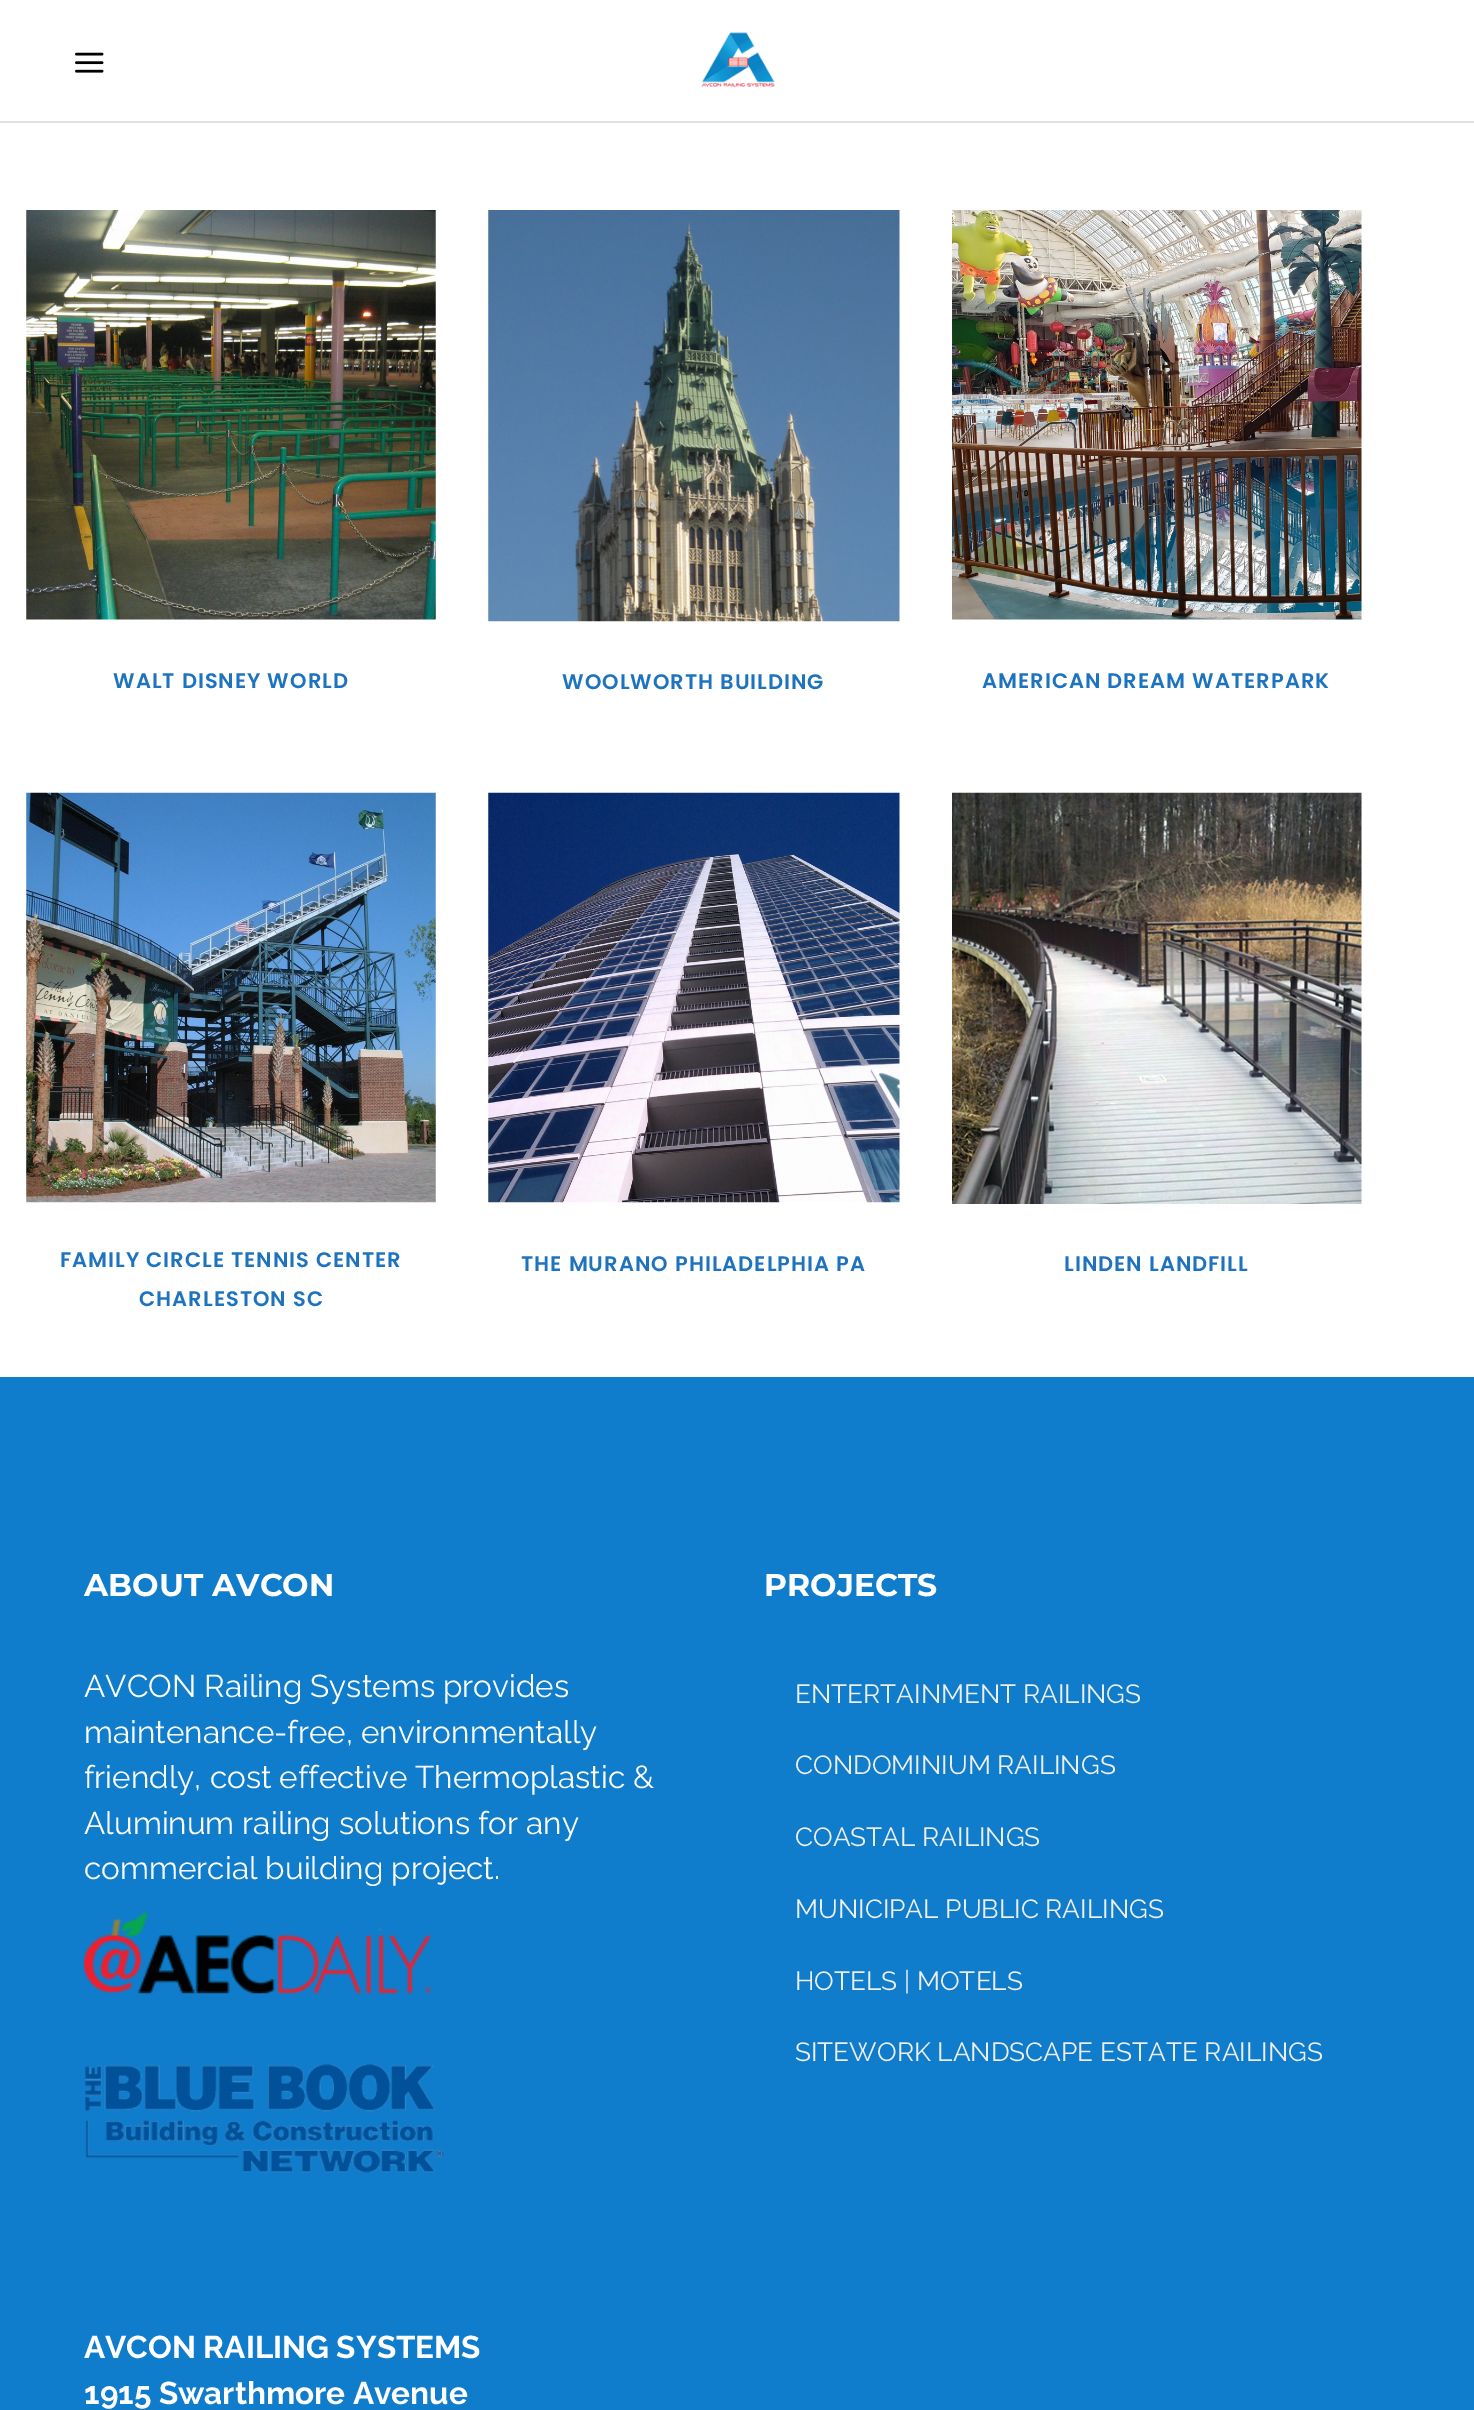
%!PS-Adobe-3.0
%%BoundingBox: 0 0 1474 2410
%%LanguageLevel: 3
%%Pages: 1
%%EndComments
%%BeginProlog
/setink { dup -16 bitshift 255 div exch dup -8 bitshift 255 and 255 div exch 255 and 255 div setrgbcolor } def
/usefont { [ exch dup neg 0 0 3 -1 roll 0 0 ] selectfont } def
/drawimage { 5 dict begin { /h /w /y /x /name } { exch def } forall
  gsave x y translate w h scale
  w h 8 [w 0 0 h 0 0] name (r) file false 3 colorimage grestore end } def
%%EndProlog
%%BeginSetup
<< /PageSize [1474 2410] >> setpagedevice
%%EndSetup
%%Page: 1 1
0 2410 translate 1 -1 scale
4 setmiterlimit
16#FFFFFF setink
0 0 1474 2410 rectfill
16#E1E1E1 setink
0 121 1474 2 rectfill
(img1.raw) 75 52 29 21 drawimage
(img2.raw) 701 32 74 55 drawimage
(img3.raw) 26 210 410 410 drawimage
/Poppins-SemiBold 21 usefont
16#1E73BE setink
113 688 moveto 1.05 0 (WALT DISNEY WORLD) ashow
(img4.raw) 488 210 412 412 drawimage
562 689 moveto 1.05 0 (WOOLWORTH BUILDING) ashow
(img5.raw) 952 210 410 410 drawimage
982 688 moveto 1.05 0 (AMERICAN DREAM WATERPARK) ashow
(img6.raw) 26 792 410 411 drawimage
60 1267 moveto 1.05 0 (FAMILY CIRCLE TENNIS CENTER) ashow
139 1306 moveto 1.05 0 (CHARLESTON SC) ashow
(img7.raw) 488 792 412 411 drawimage
521 1271 moveto 1.05 0 (THE MURANO PHILADELPHIA PA) ashow
(img8.raw) 952 792 410 412 drawimage
1064 1271 moveto 1.05 0 (LINDEN LANDFILL) ashow
16#0F7DCB setink
0 1377 1474 1033 rectfill
/Montserrat-Bold 31.5 usefont
16#FFFFFF setink
84 1596 moveto (ABOUT AVCON) show
/Raleway-Regular 31.5 usefont
[
    [(AVCON Railing Systems provides) 84 1697]
    [(maintenance-free, environmentally) 84 1743]
    [(friendly, cost effective Thermoplastic &) 84 1788]
    [(Aluminum railing solutions for any) 84 1834]
    [(commercial building project.) 84 1879]
] { aload pop moveto show } forall
(img9.raw) 84 1910 347 84 drawimage
(img10.raw) 85 2064 359 109 drawimage
/Montserrat-Bold 31.5 usefont
764 1596 moveto (PROJECTS) show
/Raleway-Regular 26.25 usefont
16#EEEEEE setink
[
    [(ENTERTAINMENT RAILINGS) 795 1703]
    [(CONDOMINIUM RAILINGS) 795 1774]
    [(COASTAL RAILINGS) 795 1846]
    [(MUNICIPAL PUBLIC RAILINGS) 795 1918]
    [(HOTELS | MOTELS) 795 1990]
    [(SITEWORK LANDSCAPE ESTATE RAILINGS) 795 2061]
] { aload pop moveto show } forall
/Raleway-Bold 31.5 usefont
16#FFFFFF setink
84 2358 moveto (AVCON RAILING SYSTEMS) show
84 2404 moveto (1915 Swarthmore Avenue) show
showpage
%%EOF
